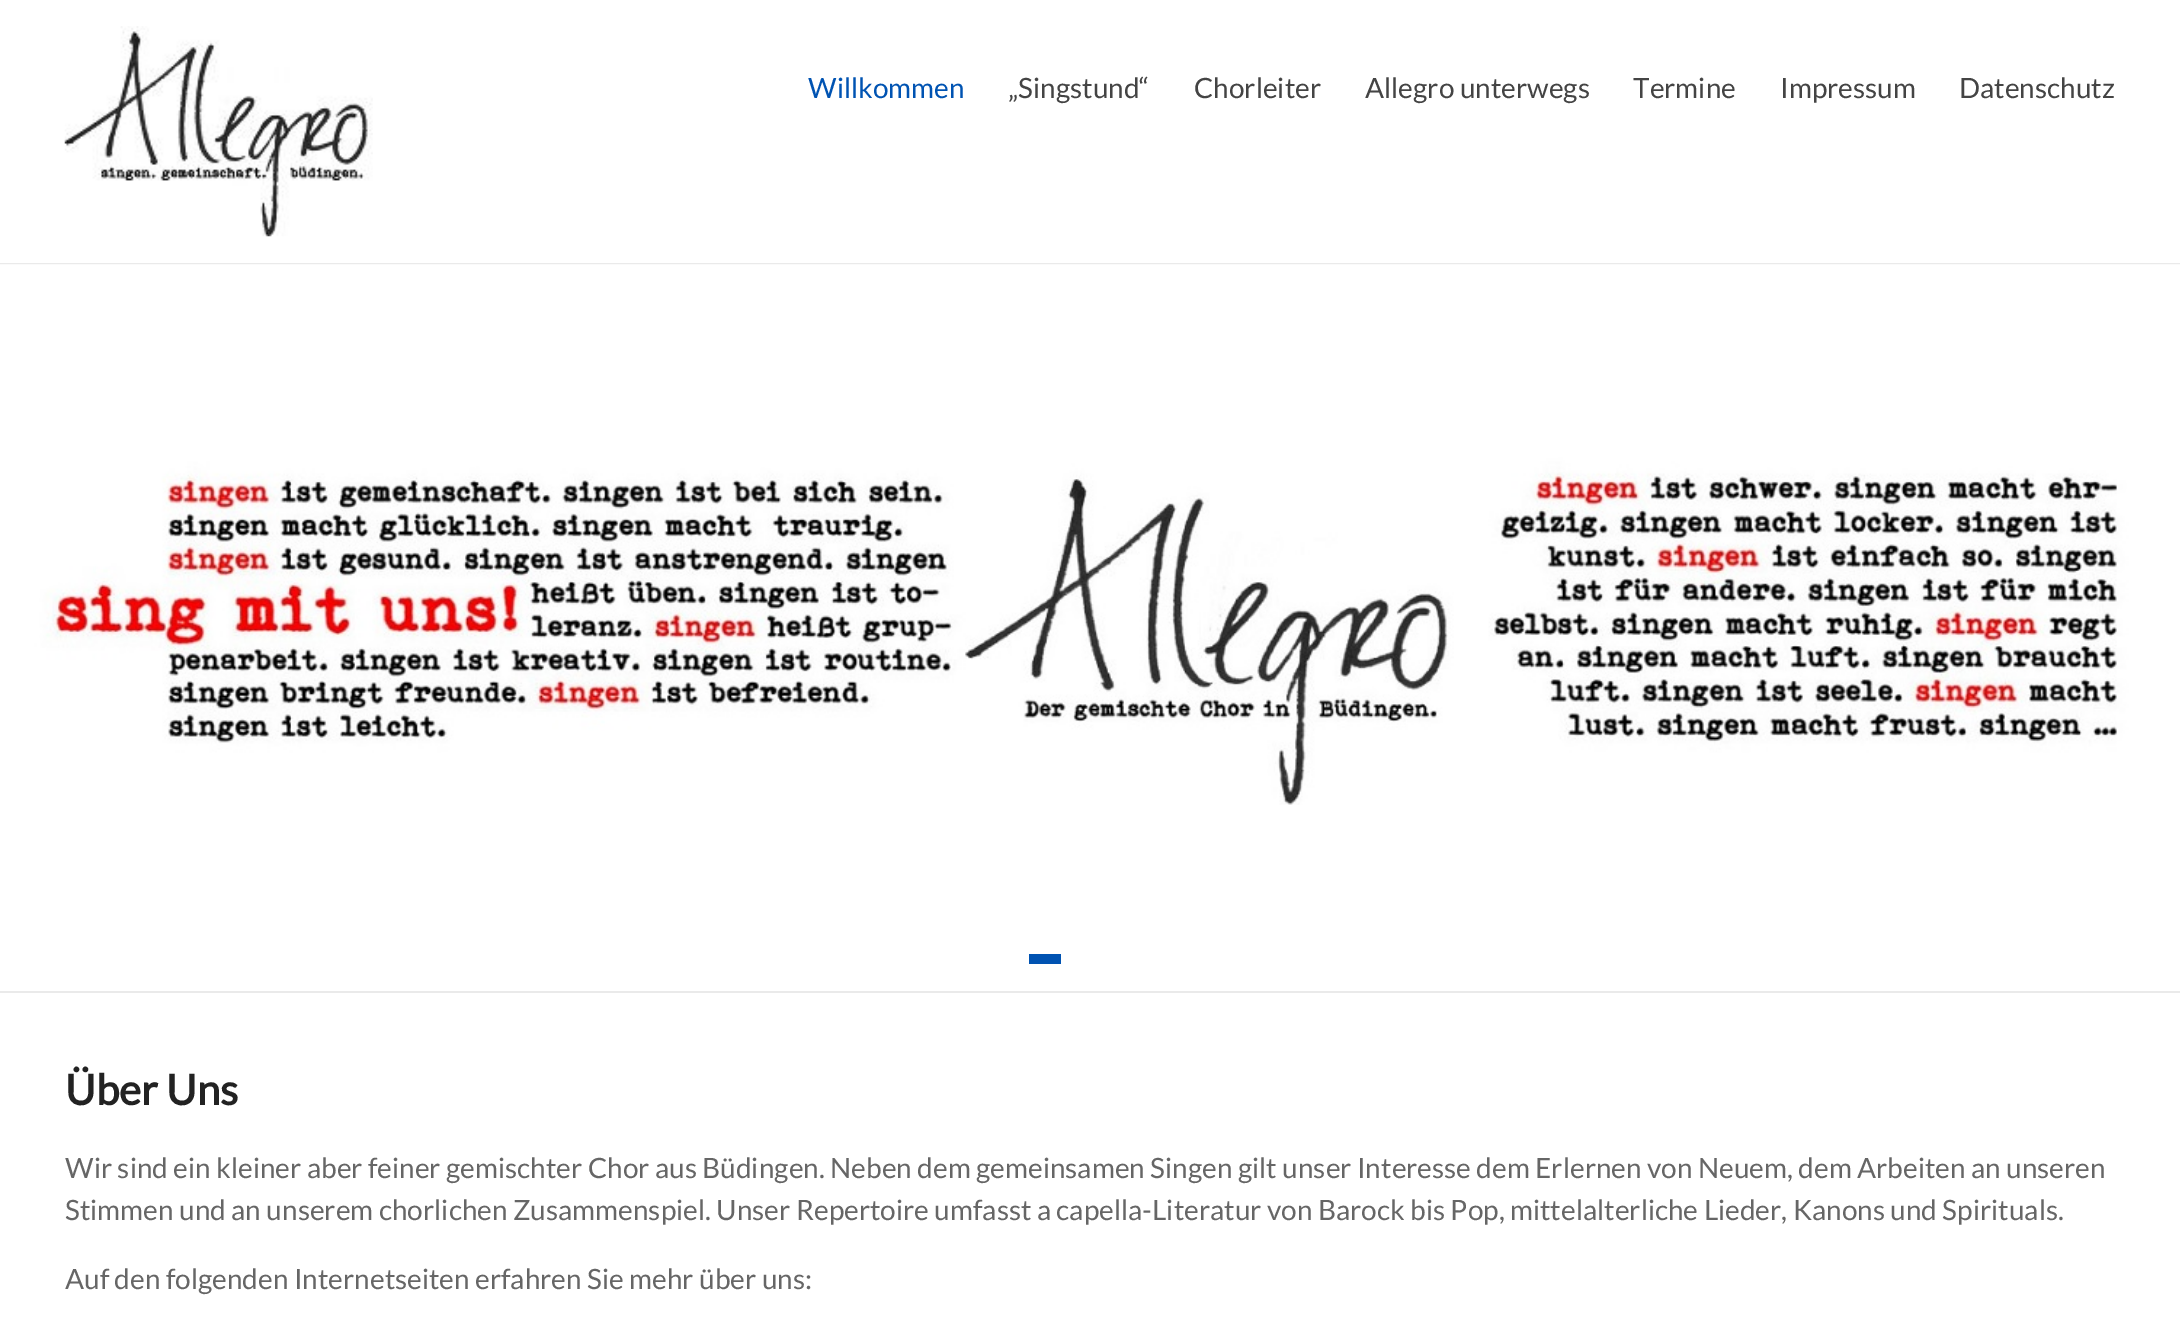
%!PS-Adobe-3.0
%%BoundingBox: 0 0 2180 1329
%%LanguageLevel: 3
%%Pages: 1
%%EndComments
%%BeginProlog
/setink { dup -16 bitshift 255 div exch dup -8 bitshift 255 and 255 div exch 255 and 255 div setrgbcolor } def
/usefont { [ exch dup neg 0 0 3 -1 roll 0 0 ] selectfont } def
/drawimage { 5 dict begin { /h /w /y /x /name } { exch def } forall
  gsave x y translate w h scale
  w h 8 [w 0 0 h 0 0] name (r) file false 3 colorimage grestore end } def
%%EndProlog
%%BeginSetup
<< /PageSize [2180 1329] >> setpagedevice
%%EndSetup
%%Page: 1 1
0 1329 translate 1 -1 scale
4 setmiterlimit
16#FFFFFF setink
0 0 2180 1329 rectfill
16#EAEAEA setink
0 263 2180 2 rectfill
(img1.raw) 64 26 309 211 drawimage
/Lato-Regular 28 usefont
16#0053B2 setink
808 98 moveto (Willkommen) show
16#444444 setink
[
    [(„Singstund“) 1008 98]
    [(Chorleiter) 1194 98]
    [(Allegro unterwegs) 1365 98]
    [(Termine) 1633 98]
    [(Impressum) 1780 98]
    [(Datenschutz) 1959 98]
] { aload pop moveto show } forall
16#EAEAEA setink
0 991 2180 2 rectfill
(img2.raw) 0 264 2180 541 drawimage
16#0053B2 setink
1029 954 32 10 rectfill
/Lato-Bold 42 usefont
16#222222 setink
65 1105 moveto (Über Uns) show
/Lato-Regular 28 usefont
16#666666 setink
[
    [(Wir sind ein kleiner aber feiner gemischter Chor aus Büdingen. Neben dem gemeinsamen Singen gilt unser Interesse dem Erlernen von Neuem, dem Arbeiten an unseren) 65 1178]
    [(Stimmen und an unserem chorlichen Zusammenspiel. Unser Repertoire umfasst a capella-Literatur von Barock bis Pop, mittelalterliche Lieder, Kanons und Spirituals.) 65 1220]
    [(Auf den folgenden Internetseiten erfahren Sie mehr über uns:) 65 1289]
] { aload pop moveto show } forall
showpage
%%EOF
